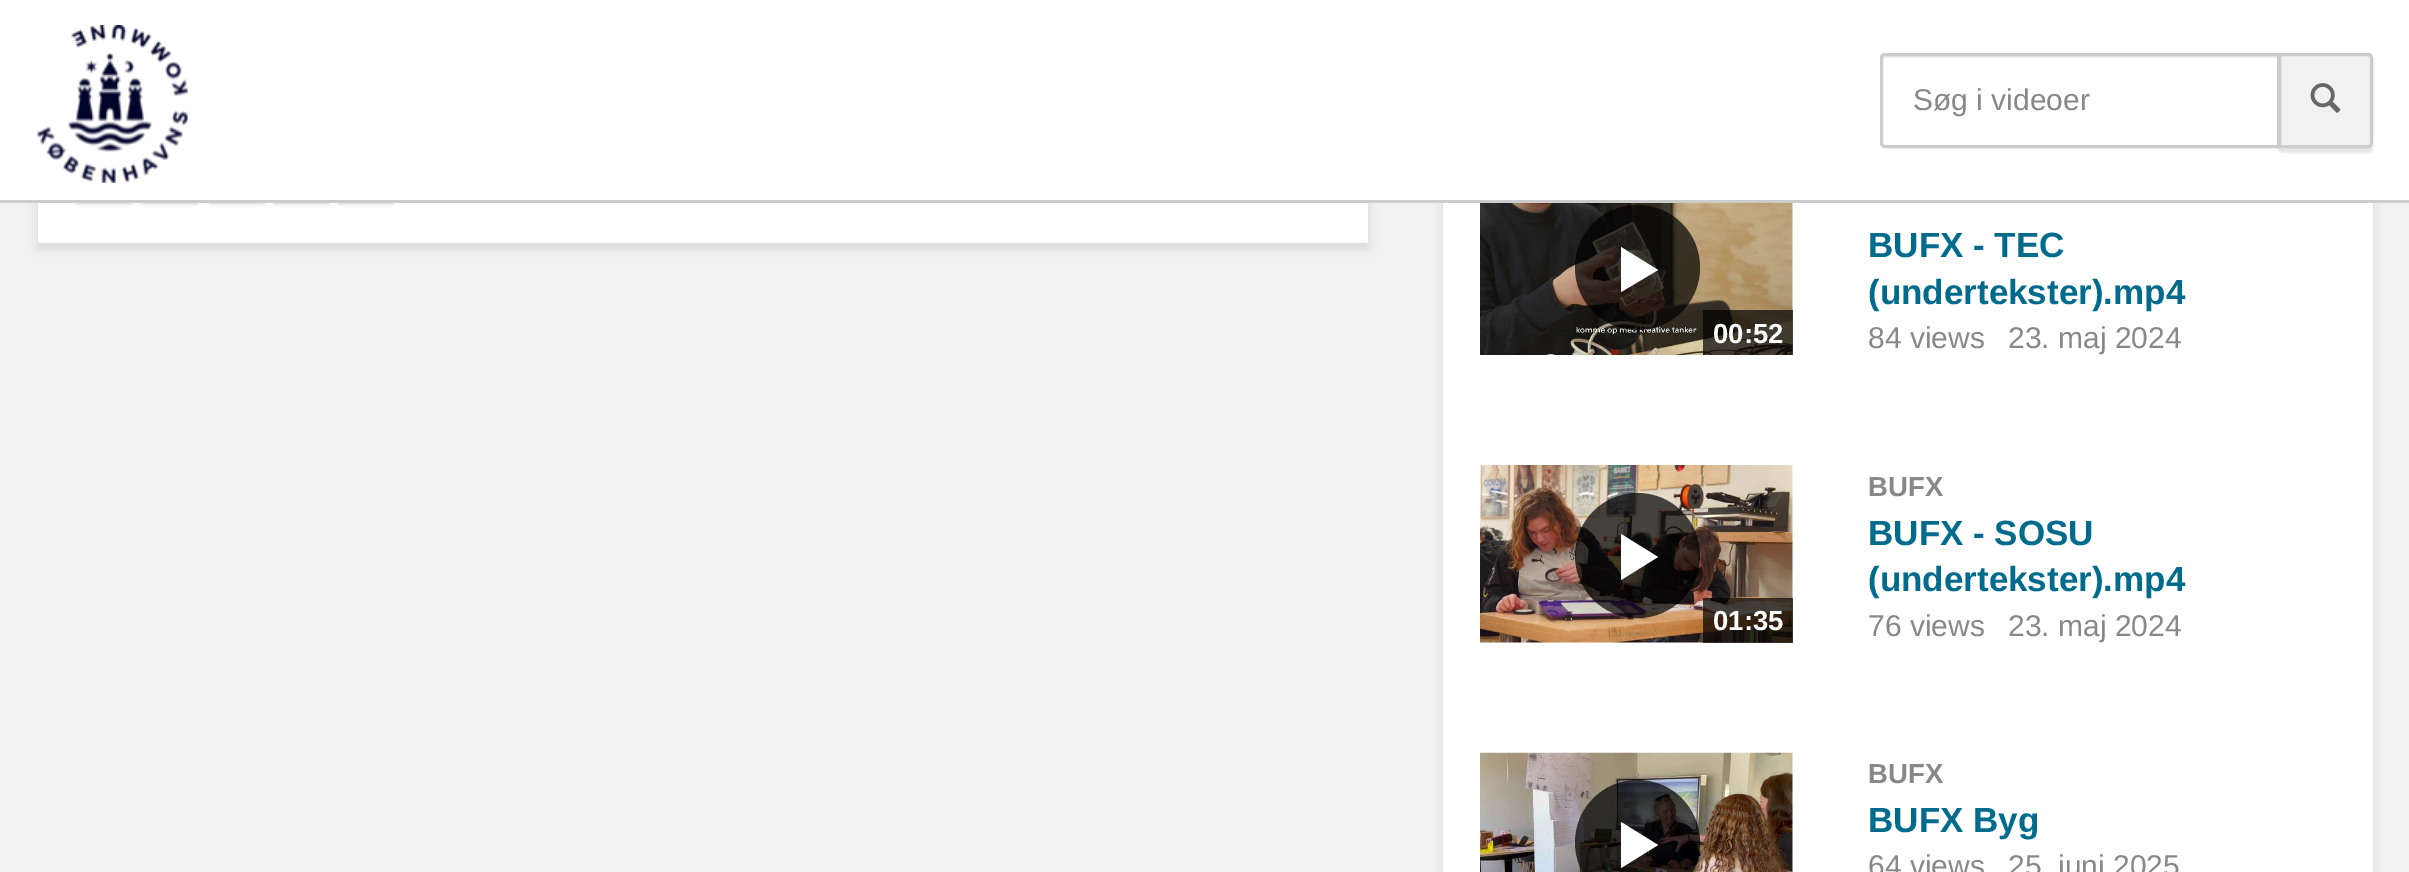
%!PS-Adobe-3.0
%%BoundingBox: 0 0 2409 872
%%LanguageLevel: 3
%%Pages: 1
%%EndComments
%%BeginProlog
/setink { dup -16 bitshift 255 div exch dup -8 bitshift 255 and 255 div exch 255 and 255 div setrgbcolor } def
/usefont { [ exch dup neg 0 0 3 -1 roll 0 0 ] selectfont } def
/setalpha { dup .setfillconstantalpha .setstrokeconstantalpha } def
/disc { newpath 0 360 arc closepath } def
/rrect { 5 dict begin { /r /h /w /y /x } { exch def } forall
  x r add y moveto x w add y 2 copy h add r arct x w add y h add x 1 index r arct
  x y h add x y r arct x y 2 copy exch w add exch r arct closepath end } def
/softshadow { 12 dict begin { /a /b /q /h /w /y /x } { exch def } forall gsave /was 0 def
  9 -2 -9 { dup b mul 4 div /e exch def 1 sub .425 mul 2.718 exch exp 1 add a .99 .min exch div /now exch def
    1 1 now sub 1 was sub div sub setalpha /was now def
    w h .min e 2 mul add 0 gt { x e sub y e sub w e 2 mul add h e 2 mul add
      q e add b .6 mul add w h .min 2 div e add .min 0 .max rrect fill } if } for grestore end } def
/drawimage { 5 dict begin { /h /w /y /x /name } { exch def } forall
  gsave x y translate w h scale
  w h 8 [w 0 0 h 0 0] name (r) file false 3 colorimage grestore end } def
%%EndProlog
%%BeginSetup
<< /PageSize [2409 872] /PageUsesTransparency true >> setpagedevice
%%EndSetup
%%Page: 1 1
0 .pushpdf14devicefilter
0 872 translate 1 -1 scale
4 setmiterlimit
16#F1F1F1 setink
0 0 2409 872 rectfill
16#000000 setink
38 23 1330 225 0 5 0.1 softshadow
16#FFFFFF setink
38 203 1330 40 rectfill
16#000000 setink
75 160 58 45 2.5 1 0.1 softshadow
140 160 58 45 2.5 1 0.1 softshadow
208 160 57 45 2.5 1 0.1 softshadow
273 160 57 45 2.5 1 0.1 softshadow
338 160 57 45 2.5 1 0.1 softshadow
1443 -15 930 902 0 5 0.1 softshadow
16#FFFFFF setink
0 0 2409 200 rectfill
16#CCCCCC setink
0 200 2409 3 rectfill
(img1.raw) 37 25 151 158 drawimage
16#000000 setink
2278 58 95 95 5 1 0.1 softshadow
16#F1F1F1 setink
2279.5 54.5 moveto 2368 54.5 lineto 2370 54.5 2371.5 56 2371.5 58 curveto 2371.5 143 lineto 2371.5 145 2370 146.5 2368 146.5 curveto 2279.5 146.5 lineto closepath gsave fill grestore
16#CCCCCC setink
3 setlinewidth
stroke
16#FFFFFF setink
1885 53 moveto 2280 53 lineto 2280 148 lineto 1885 148 lineto 1882 148 1880 146 1880 143 curveto 1880 58 lineto 1880 55 1882 53 1885 53 curveto closepath fill
16#ECECEC setink
1885 58 moveto 2278 58 lineto 2278 55 lineto 1885 55 lineto 1883 56 lineto 1883 59 lineto closepath fill
16#CCCCCC setink
1885 54.5 moveto 2278.5 54.5 lineto 2278.5 146.5 lineto 1885 146.5 lineto 1883 146.5 1881.5 145 1881.5 143 curveto 1881.5 58 lineto 1881.5 56 1883 54.5 1885 54.5 curveto closepath stroke
/LiberationSans-Regular 30 usefont
16#888888 setink
1913 110 moveto (Søg i videoer) show
(img2.raw) 2310 83 31 30 drawimage
16#FFFFFF setink
1443 203 930 669 rectfill
(img3.raw) 1480 203 313 152 drawimage
0.7 setalpha
16#000000 setink
1637.5 267.5 62.5 disc fill
1 setalpha
16#FFFFFF setink
1621 292 moveto 1658 270 lineto 1621 247 lineto closepath fill
0.7 setalpha
16#000000 setink
1703 310 90 45 rectfill
/LiberationSans-Bold 27.5 usefont
1 setalpha
16#FFFFFF setink
1713 343 moveto (00:52) show
/LiberationSans-Bold 35 usefont
16#006B8C setink
1868 257 moveto (BUFX - TEC) show
1868 304 moveto (\(undertekster\).mp4) show
/LiberationSans-Regular 30 usefont
16#888888 setink
1868 348 moveto (84 views) show
2008 348 moveto (23. maj 2024) show
(img4.raw) 1480 465 313 178 drawimage
0.7 setalpha
16#000000 setink
1637.5 555.5 62.5 disc fill
1 setalpha
16#FFFFFF setink
1621 580 moveto 1658 557 lineto 1621 534 lineto closepath fill
0.7 setalpha
16#000000 setink
1703 598 90 45 rectfill
/LiberationSans-Bold 27.5 usefont
1 setalpha
16#FFFFFF setink
1713 630 moveto (01:35) show
16#888888 setink
1868 496 moveto (BUFX) show
/LiberationSans-Bold 35 usefont
16#006B8C setink
1868 545 moveto (BUFX - SOSU) show
1868 591 moveto (\(undertekster\).mp4) show
/LiberationSans-Regular 30 usefont
16#888888 setink
1868 636 moveto (76 views) show
2008 636 moveto (23. maj 2024) show
(img5.raw) 1480 752 313 120 drawimage
0.7 setalpha
16#000000 setink
1637.5 842.5 62.5 disc fill
1 setalpha
16#FFFFFF setink
1621 868 moveto 1658 845 lineto 1621 822 lineto closepath fill
/LiberationSans-Bold 27.5 usefont
16#888888 setink
1868 783 moveto (BUFX) show
/LiberationSans-Bold 35 usefont
16#006B8C setink
1868 832 moveto (BUFX Byg) show
/LiberationSans-Regular 30 usefont
16#888888 setink
1868 876 moveto (64 views) show
2008 876 moveto (25. juni 2025) show
.poppdf14devicefilter showpage
%%EOF
